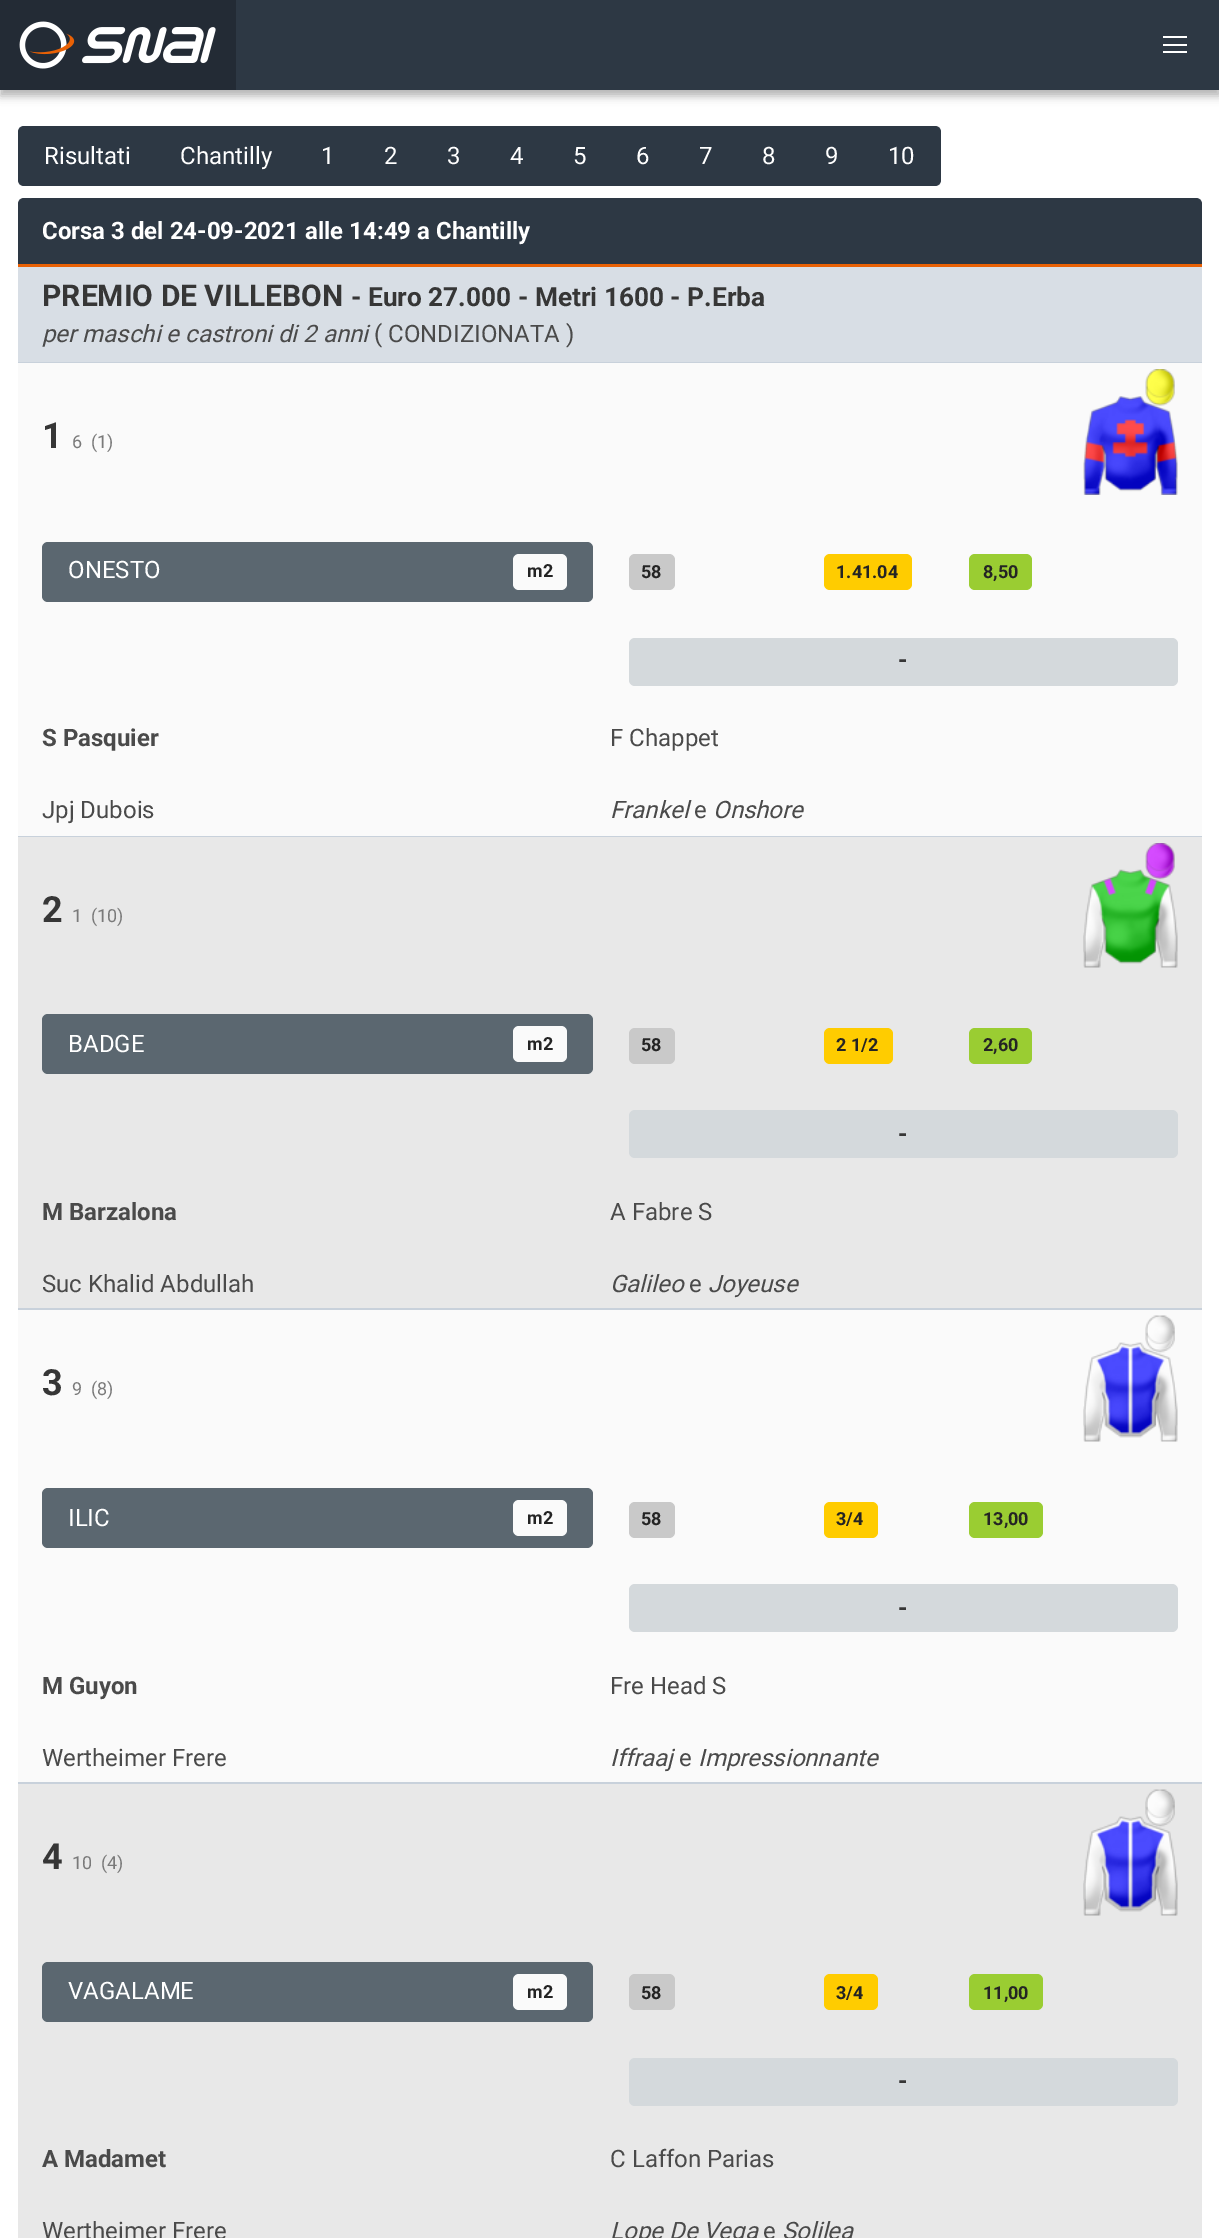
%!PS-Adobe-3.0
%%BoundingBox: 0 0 1219 2238
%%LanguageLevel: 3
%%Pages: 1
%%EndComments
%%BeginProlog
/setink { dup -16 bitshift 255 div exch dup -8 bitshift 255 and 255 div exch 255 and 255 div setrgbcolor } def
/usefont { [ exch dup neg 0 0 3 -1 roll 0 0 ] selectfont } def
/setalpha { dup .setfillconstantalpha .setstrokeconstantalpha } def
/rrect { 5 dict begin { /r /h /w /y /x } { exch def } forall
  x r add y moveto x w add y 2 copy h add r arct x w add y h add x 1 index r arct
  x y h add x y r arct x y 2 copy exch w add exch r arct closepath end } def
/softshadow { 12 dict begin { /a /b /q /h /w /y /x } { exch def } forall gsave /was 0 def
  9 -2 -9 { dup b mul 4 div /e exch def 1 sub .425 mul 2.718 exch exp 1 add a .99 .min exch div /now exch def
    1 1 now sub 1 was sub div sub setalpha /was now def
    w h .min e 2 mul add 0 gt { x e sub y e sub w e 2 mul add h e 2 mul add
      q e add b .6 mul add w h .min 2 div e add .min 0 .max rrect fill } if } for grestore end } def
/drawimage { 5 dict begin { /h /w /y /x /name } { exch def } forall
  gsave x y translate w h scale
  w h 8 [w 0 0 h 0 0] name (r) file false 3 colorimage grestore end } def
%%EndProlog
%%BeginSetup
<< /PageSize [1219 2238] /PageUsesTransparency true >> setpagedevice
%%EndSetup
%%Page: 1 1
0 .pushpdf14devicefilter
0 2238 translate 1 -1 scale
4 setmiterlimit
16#FFFFFF setink
0 0 1219 2238 rectfill
16#000000 setink
0 6 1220 90 0 4.5 0.3 softshadow
16#2D3844 setink
236 0 983 90 rectfill
16#232B35 setink
0 0 236 90 rectfill
(img1.raw) 19 21 197 48 drawimage
[
    [1163 36 24 2 16#FFFFFF]
    [1163 44 24 2 16#FFFFFF]
    [1163 51 24 2 16#FFFFFF]
] { aload pop setink rectfill } forall
16#2D3844 setink
24 126 moveto 156 126 lineto 156 186 lineto 24 186 lineto 20.5 186 18 183.5 18 180 curveto 18 132 lineto 18 128.5 20.5 126 24 126 curveto closepath fill
/Roboto-Regular 24 usefont
16#FFFFFF setink
44 164 moveto (Risultati) show
16#2D3844 setink
156 126 707 60 rectfill
16#FFFFFF setink
[
    [(Chantilly) 180 164]
    [(1) 321 164]
    [(2) 384 164]
    [(3) 447 164]
    [(4) 510 164]
    [(5) 573 164]
    [(6) 636 164]
    [(7) 699 164]
    [(8) 762 164]
    [(9) 825 164]
] { aload pop moveto show } forall
16#2D3844 setink
863 126 moveto 935 126 lineto 938.5 126 941 128.5 941 132 curveto 941 180 lineto 941 183.5 938.5 186 935 186 curveto 863 186 lineto closepath fill
16#FFFFFF setink
888 164 moveto (10) show
16#2D3844 setink
24 198 moveto 1196 198 lineto 1199.5 198 1202 200.5 1202 204 curveto 1202 267 lineto 18 267 lineto 18 204 lineto 18 200.5 20.5 198 24 198 curveto closepath fill
16#E96105 setink
18 264 1184 3 rectfill
/Roboto-Bold 24 usefont
16#FFFFFF setink
42 239 moveto (Corsa 3 del 24-09-2021 alle 14:49 a Chantilly) show
16#D8DEE5 setink
18 267 1184 95 rectfill
16#C8D1DB setink
18 362 1184 1 rectfill
/Roboto-Bold 30 usefont
16#363636 setink
42 306 moveto (PREMIO DE VILLEBON) show
/Roboto-Bold 26.25 usefont
351 306 moveto (- Euro 27.000 - Metri 1600 - P.Erba) show
/Roboto-Italic 24 usefont
16#4A4A4A setink
42 342 moveto (per maschi e castroni di 2 anni) show
/Roboto-Regular 24 usefont
374 342 moveto (\( CONDIZIONATA \)) show
16#FAFAFA setink
18 363 1184 473 rectfill
16#C8D1DB setink
18 836 1184 1 rectfill
/Roboto-Bold 36 usefont
16#363636 setink
42 448 moveto (1) show
/Roboto-Regular 18 usefont
16#7A7A7A setink
72 448 moveto (6) show
91 448 moveto (\(1\)) show
(img2.raw) 1083 369 95 126 drawimage
16#5B6770 setink
42 542 551 60 6 rrect fill
/Roboto-Regular 24 usefont
16#FFFFFF setink
68 578 moveto (ONESTO) show
16#FAFAFA setink
513 554 54 36 6 rrect fill
/Roboto-Bold 18 usefont
16#242424 setink
527 577 moveto (m2) show
16#C9C9C9 setink
629 554 46 36 6 rrect fill
16#242424 setink
641 578 moveto (58) show
16#FFCC00 setink
824 554 88 36 6 rrect fill
16#242424 setink
836 578 moveto (1.41.04) show
16#9ACD32 setink
969 554 63 36 6 rrect fill
16#242424 setink
983 578 moveto (8,50) show
16#D4D9DC setink
629 638 549 48 6 rrect fill
/Roboto-Bold 24 usefont
16#363636 setink
898 668 moveto (-) show
16#4A4A4A setink
42 746 moveto (S Pasquier) show
/Roboto-Regular 24 usefont
610 746 moveto (F Chappet) show
42 818 moveto (Jpj Dubois) show
/Roboto-Italic 24 usefont
610 818 moveto (Frankel) show
/Roboto-Regular 24 usefont
694 818 moveto (e) show
/Roboto-Italic 24 usefont
713 818 moveto (Onshore) show
16#E8E8E8 setink
18 837 1184 471 rectfill
16#C8D1DB setink
18 1308 1184 2 rectfill
/Roboto-Bold 36 usefont
16#363636 setink
42 922 moveto (2) show
/Roboto-Regular 18 usefont
16#7A7A7A setink
72 922 moveto (1) show
91 922 moveto (\(10\)) show
(img3.raw) 1083 843 95 125 drawimage
16#5B6770 setink
42 1014 551 60 6 rrect fill
/Roboto-Regular 24 usefont
16#FFFFFF setink
68 1052 moveto (BADGE) show
16#FAFAFA setink
513 1026 54 36 6 rrect fill
/Roboto-Bold 18 usefont
16#242424 setink
527 1050 moveto (m2) show
16#C9C9C9 setink
629 1028 46 36 6 rrect fill
16#242424 setink
641 1051 moveto (58) show
16#FFCC00 setink
824 1028 69 36 6 rrect fill
16#242424 setink
836 1051 moveto (2 1/2) show
16#9ACD32 setink
969 1028 63 36 6 rrect fill
16#242424 setink
983 1051 moveto (2,60) show
16#D4D9DC setink
629 1110 549 48 6 rrect fill
/Roboto-Bold 24 usefont
16#363636 setink
898 1142 moveto (-) show
16#4A4A4A setink
42 1220 moveto (M Barzalona) show
/Roboto-Regular 24 usefont
610 1220 moveto (A Fabre S) show
42 1292 moveto (Suc Khalid Abdullah) show
/Roboto-Italic 24 usefont
610 1292 moveto (Galileo) show
/Roboto-Regular 24 usefont
689 1292 moveto (e) show
/Roboto-Italic 24 usefont
708 1292 moveto (Joyeuse) show
16#FAFAFA setink
18 1310 1184 472 rectfill
16#C8D1DB setink
18 1782 1184 2 rectfill
/Roboto-Bold 36 usefont
16#363636 setink
42 1395 moveto (3) show
/Roboto-Regular 18 usefont
16#7A7A7A setink
72 1395 moveto (9) show
91 1395 moveto (\(8\)) show
(img4.raw) 1083 1315 95 127 drawimage
16#5B6770 setink
42 1488 551 60 6 rrect fill
/Roboto-Regular 24 usefont
16#FFFFFF setink
68 1526 moveto (ILIC) show
16#FAFAFA setink
513 1500 54 36 6 rrect fill
/Roboto-Bold 18 usefont
16#242424 setink
527 1524 moveto (m2) show
16#C9C9C9 setink
629 1502 46 36 6 rrect fill
16#242424 setink
641 1525 moveto (58) show
16#FFCC00 setink
824 1502 54 36 6 rrect fill
16#242424 setink
836 1525 moveto (3/4) show
16#9ACD32 setink
969 1502 74 36 6 rrect fill
16#242424 setink
983 1525 moveto (13,00) show
16#D4D9DC setink
629 1584 549 48 6 rrect fill
/Roboto-Bold 24 usefont
16#363636 setink
898 1616 moveto (-) show
16#4A4A4A setink
42 1694 moveto (M Guyon) show
/Roboto-Regular 24 usefont
610 1694 moveto (Fre Head S) show
42 1766 moveto (Wertheimer Frere) show
/Roboto-Italic 24 usefont
610 1766 moveto (Iffraaj) show
/Roboto-Regular 24 usefont
679 1766 moveto (e) show
/Roboto-Italic 24 usefont
698 1766 moveto (Impressionnante) show
16#E8E8E8 setink
18 1784 1184 454 rectfill
/Roboto-Bold 36 usefont
16#363636 setink
42 1869 moveto (4) show
/Roboto-Regular 18 usefont
16#7A7A7A setink
72 1869 moveto (10) show
101 1869 moveto (\(4\)) show
(img5.raw) 1083 1789 95 127 drawimage
16#5B6770 setink
42 1962 551 60 6 rrect fill
/Roboto-Regular 24 usefont
16#FFFFFF setink
68 1999 moveto (VAGALAME) show
16#FAFAFA setink
513 1974 54 36 6 rrect fill
/Roboto-Bold 18 usefont
16#242424 setink
527 1998 moveto (m2) show
16#C9C9C9 setink
629 1974 46 36 6 rrect fill
16#242424 setink
641 1999 moveto (58) show
16#FFCC00 setink
824 1974 54 36 6 rrect fill
16#242424 setink
836 1999 moveto (3/4) show
16#9ACD32 setink
969 1974 74 36 6 rrect fill
16#242424 setink
983 1999 moveto (11,00) show
16#D4D9DC setink
629 2058 549 48 6 rrect fill
/Roboto-Bold 24 usefont
16#363636 setink
898 2089 moveto (-) show
16#4A4A4A setink
42 2167 moveto (A Madamet) show
/Roboto-Regular 24 usefont
610 2167 moveto (C Laffon Parias) show
42 2239 moveto (Wertheimer Frere) show
/Roboto-Italic 24 usefont
610 2239 moveto (Lope De Vega) show
/Roboto-Regular 24 usefont
763 2239 moveto (e) show
/Roboto-Italic 24 usefont
782 2239 moveto (Solilea) show
.poppdf14devicefilter showpage
%%EOF
